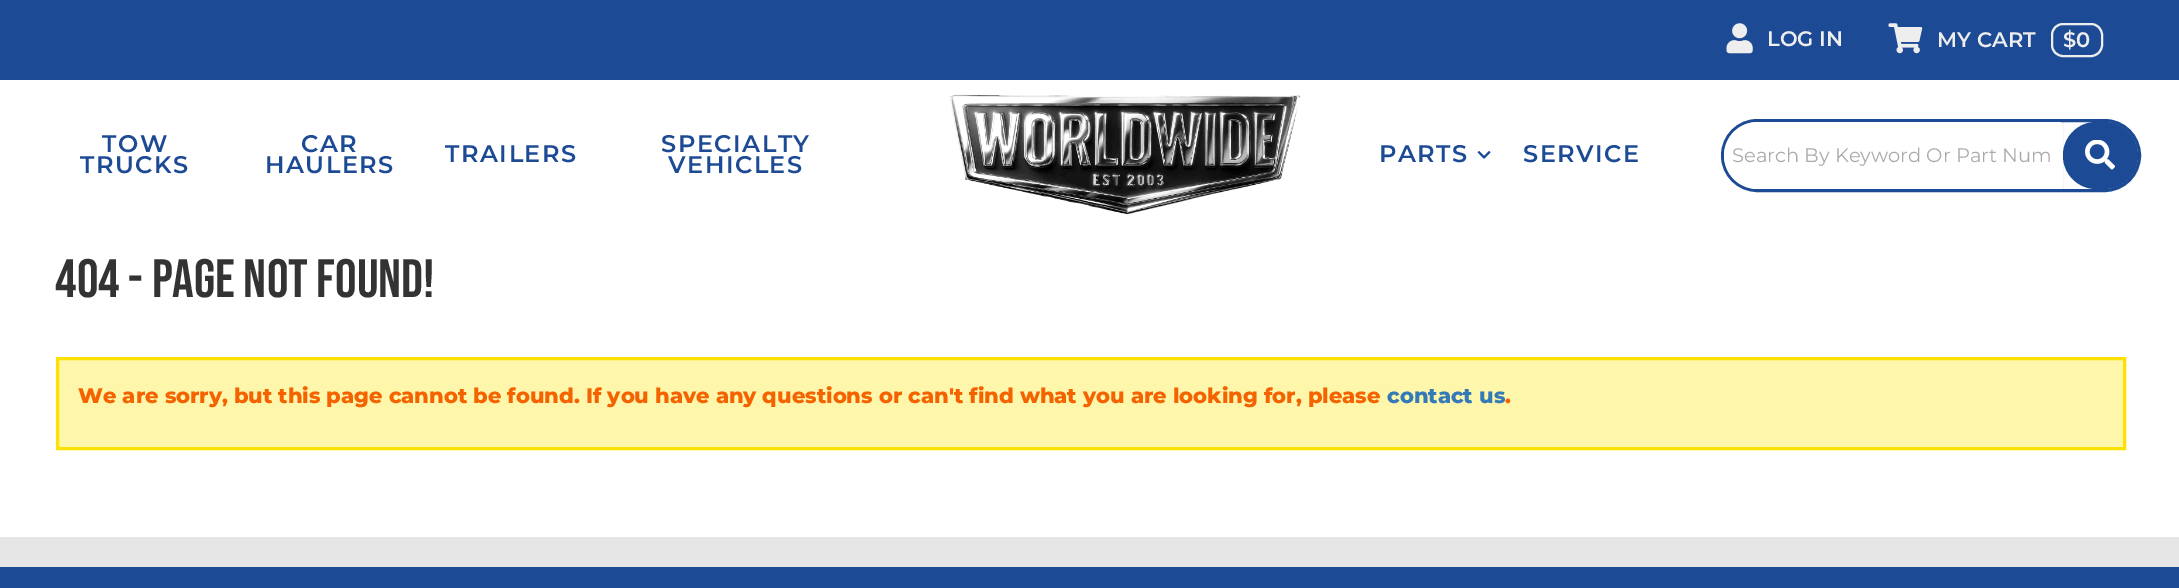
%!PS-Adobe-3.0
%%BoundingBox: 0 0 2179 588
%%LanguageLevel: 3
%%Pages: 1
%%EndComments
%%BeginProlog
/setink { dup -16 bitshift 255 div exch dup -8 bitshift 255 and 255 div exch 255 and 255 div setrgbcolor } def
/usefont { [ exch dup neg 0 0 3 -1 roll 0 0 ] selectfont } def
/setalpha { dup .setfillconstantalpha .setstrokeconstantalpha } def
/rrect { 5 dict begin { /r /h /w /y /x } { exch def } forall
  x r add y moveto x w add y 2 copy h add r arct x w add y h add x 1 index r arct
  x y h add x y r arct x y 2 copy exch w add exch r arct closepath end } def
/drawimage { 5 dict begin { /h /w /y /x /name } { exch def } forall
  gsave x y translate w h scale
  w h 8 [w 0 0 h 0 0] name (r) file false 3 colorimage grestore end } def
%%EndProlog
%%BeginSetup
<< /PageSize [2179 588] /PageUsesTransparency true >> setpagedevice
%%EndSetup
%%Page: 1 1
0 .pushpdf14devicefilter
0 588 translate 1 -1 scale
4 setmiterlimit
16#FFFFFF setink
0 0 2179 588 rectfill
16#1C4A95 setink
0 0 2179 80 rectfill
(img1.raw) 1726 23 27 31 drawimage
/Montserrat-Thin 21 usefont
16#EEEEEE setink
1767 46 moveto (LOG IN) show
(img2.raw) 1888 23 35 31 drawimage
1937 47 moveto (MY CART) show
2 setlinewidth
2052 24 50 32 11 rrect stroke
2063 47 moveto ($0) show
/Montserrat-Thin 24 usefont
16#1C4A95 setink
102 152 moveto 1.5 0 (TOW) ashow
80 173 moveto 1.5 0 (TRUCKS) ashow
301 152 moveto 1.5 0 (CAR) ashow
265 173 moveto 1.5 0 (HAULERS) ashow
445 162 moveto 1.5 0 (TRAILERS) ashow
661 152 moveto 1.5 0 (SPECIALTY) ashow
668 173 moveto 1.5 0 (VEHICLES) ashow
(img3.raw) 949 94 352 121 drawimage
1379 162 moveto 1.5 0 (PARTS) ashow
(img4.raw) 1477 151 14 8 drawimage
1523 162 moveto 1.5 0 (SERVICE) ashow
3 setlinewidth
1722.5 120.5 417 70 35 rrect stroke
2096 122 moveto 2104.5 122 lineto 2123 122 2138 137 2138 155.5 curveto 2138 174 2123 189 2104.5 189 curveto 2096 189 lineto 2078 189 2063 174 2063 156 curveto 2063 155 lineto 2063 137 2078 122 2096 122 curveto closepath fill
0.04 setalpha
16#000000 setink
2062 122 2 67 rectfill
1 setalpha
16#FFFFFF setink
1757.5 122 moveto 2058 122 lineto 2061 122 2063 124 2063 127 curveto 2063 184 lineto 2063 187 2061 189 2058 189 curveto 1757.5 189 lineto 1739 189 1724 174 1724 155.5 curveto 1724 137 1739 122 1757.5 122 curveto closepath fill
/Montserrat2-Thin 19.5 usefont
16#AAAAAA setink
1732 162 moveto (Search By Keyword Or Part Num) show
(img5.raw) 2085 140 30 30 drawimage
/BebasNeue-Regular 54 usefont
16#333333 setink
55 297 moveto (404 - Page Not Found!) show
16#FEF6AB setink
57.5 358.5 moveto 2124.5 358.5 lineto 2124.5 448.5 lineto 57.5 448.5 lineto closepath gsave fill grestore
16#FDE100 setink
stroke
/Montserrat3-Thin 21 usefont
16#F56301 setink
78 403 moveto (We are sorry, but this page cannot be found. If you have any questions or can't find what you are looking for, please) show
16#337AB7 setink
1387 403 moveto (contact us) show
16#F56301 setink
1505 403 moveto (.) show
16#1C4A95 setink
0 567 2179 21 rectfill
16#E6E6E6 setink
0 537 2179 30 rectfill
.poppdf14devicefilter showpage
%%EOF
